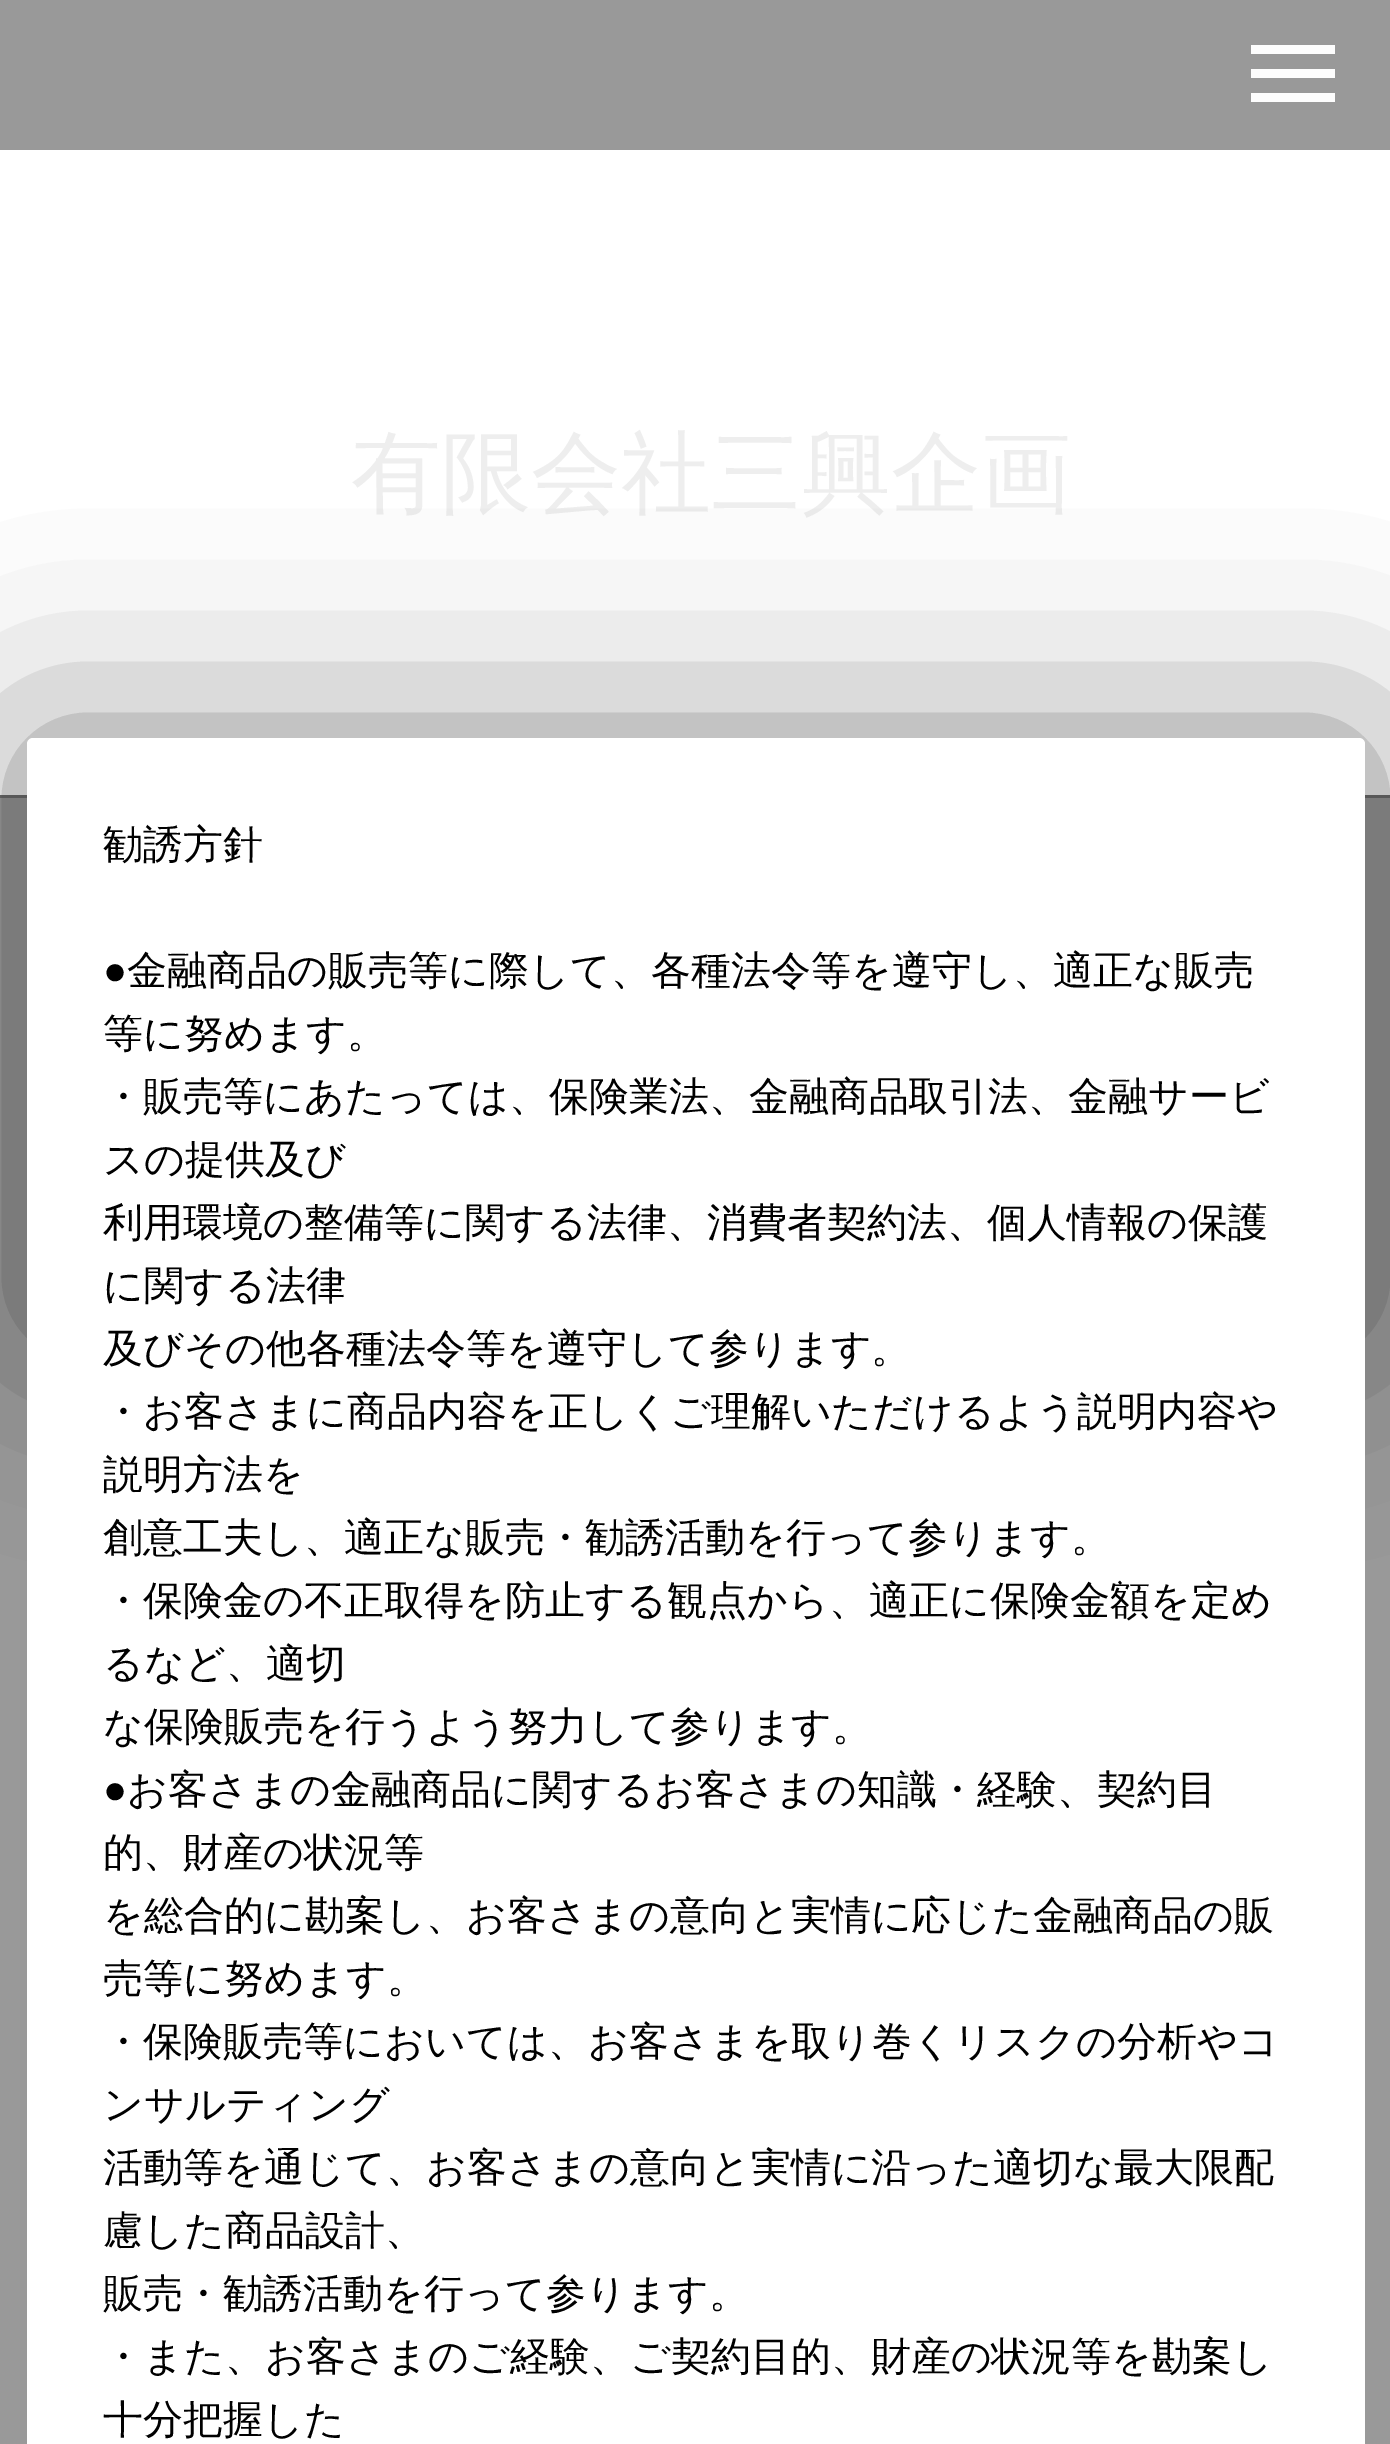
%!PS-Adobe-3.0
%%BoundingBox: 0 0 1390 2444
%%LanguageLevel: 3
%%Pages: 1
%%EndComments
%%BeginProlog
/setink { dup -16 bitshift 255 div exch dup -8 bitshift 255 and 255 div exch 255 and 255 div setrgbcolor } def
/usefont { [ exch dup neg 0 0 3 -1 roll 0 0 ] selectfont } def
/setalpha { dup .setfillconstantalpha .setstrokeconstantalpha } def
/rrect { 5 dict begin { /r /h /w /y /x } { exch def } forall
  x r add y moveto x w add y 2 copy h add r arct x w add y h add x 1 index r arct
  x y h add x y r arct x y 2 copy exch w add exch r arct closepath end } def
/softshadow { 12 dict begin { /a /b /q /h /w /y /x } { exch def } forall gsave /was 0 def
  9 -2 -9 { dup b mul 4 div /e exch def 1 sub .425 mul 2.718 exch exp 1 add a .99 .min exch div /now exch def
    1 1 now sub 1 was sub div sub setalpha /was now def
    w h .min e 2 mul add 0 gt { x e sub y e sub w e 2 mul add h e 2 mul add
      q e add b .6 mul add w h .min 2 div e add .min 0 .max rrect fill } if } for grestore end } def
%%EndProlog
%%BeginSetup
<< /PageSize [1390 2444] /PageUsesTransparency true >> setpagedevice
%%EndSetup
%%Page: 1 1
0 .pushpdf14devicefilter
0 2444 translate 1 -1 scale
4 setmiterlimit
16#FFFFFF setink
0 0 1390 2444 rectfill
[
    [0 0 1390 150 16#999999]
    [1251 69 84 9 16#FDFDFD]
    [1251 45 84 9 16#FDFDFD]
    [1251 93 84 9 16#FDFDFD]
] { aload pop setink rectfill } forall
/WenQuanYiZenHei-Medium 90 usefont
16#EEEEEE setink
351 504 moveto (有限会社三興企画) show
16#999999 setink
0 798 1390 1646 rectfill
16#666666 setink
0 795 1390 3 rectfill
16#333333 setink
27 738 1338 600 0 102 0.6 softshadow
16#FFFFFF setink
27 738 1338 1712 6 rrect fill
/WenQuanYiZenHei-Medium 40 usefont
16#000000 setink
103 858 moveto (勧誘方針) show
/LiberationSerif-Regular 40 usefont
103 984 moveto (●) show
/WenQuanYiZenHei-Medium 40 usefont
[
    [(金融商品の販売等に際して、各種法令等を遵守し、適正な販売) 127 984]
    [(等に努めます。) 103 1047]
    [(・販売等にあたっては、保険業法、金融商品) 103 1110]
    [(取引法、金融サービ) 908 1110]
    [(スの提供及び) 103 1173]
    [(利用環境の整備等に関する法律、消費者契約法、個人情報の保護) 103 1236]
    [(に関する法律) 103 1299]
    [(及びその他各種法令等を遵守して参ります。) 103 1362]
    [(・お客さまに商品内容を正しくご理解いただけるよう説明内容や) 103 1425]
    [(説明方法を) 103 1488]
    [(創意工夫し、適正な販売・勧誘活動を行って参ります。) 103 1551]
    [(・保険金の不正取得を防止する観点から、適正に保険金額を定め) 103 1614]
    [(るなど、適切) 103 1677]
    [(な保険販売を行うよう努力して参ります。) 103 1740]
] { aload pop moveto show } forall
/LiberationSerif-Regular 40 usefont
103 1803 moveto (●) show
/WenQuanYiZenHei-Medium 40 usefont
[
    [(お客さまの金融商品に関するお客さまの知識・経験、契約目) 127 1803]
    [(的、財産の状況等) 103 1866]
    [(を総合的に勘案し、お客さまの意向と実情に応じた金融商品の販) 103 1929]
    [(売等に努めます。) 103 1992]
    [(・保険販売等においては、お客さまを取り巻くリスクの分析やコ) 103 2055]
    [(ンサルティング) 103 2118]
    [(活動等を通じて、お客さまの意向と実情に沿った適切な最大限配) 103 2181]
    [(慮した商品設計、) 103 2244]
    [(販売・勧誘活動を行って参ります。) 103 2307]
    [(・また、お客さまのご経験、ご契約目的、財産の状況等を勘案し) 103 2370]
    [(十分把握した) 103 2433]
] { aload pop moveto show } forall
.poppdf14devicefilter showpage
%%EOF
